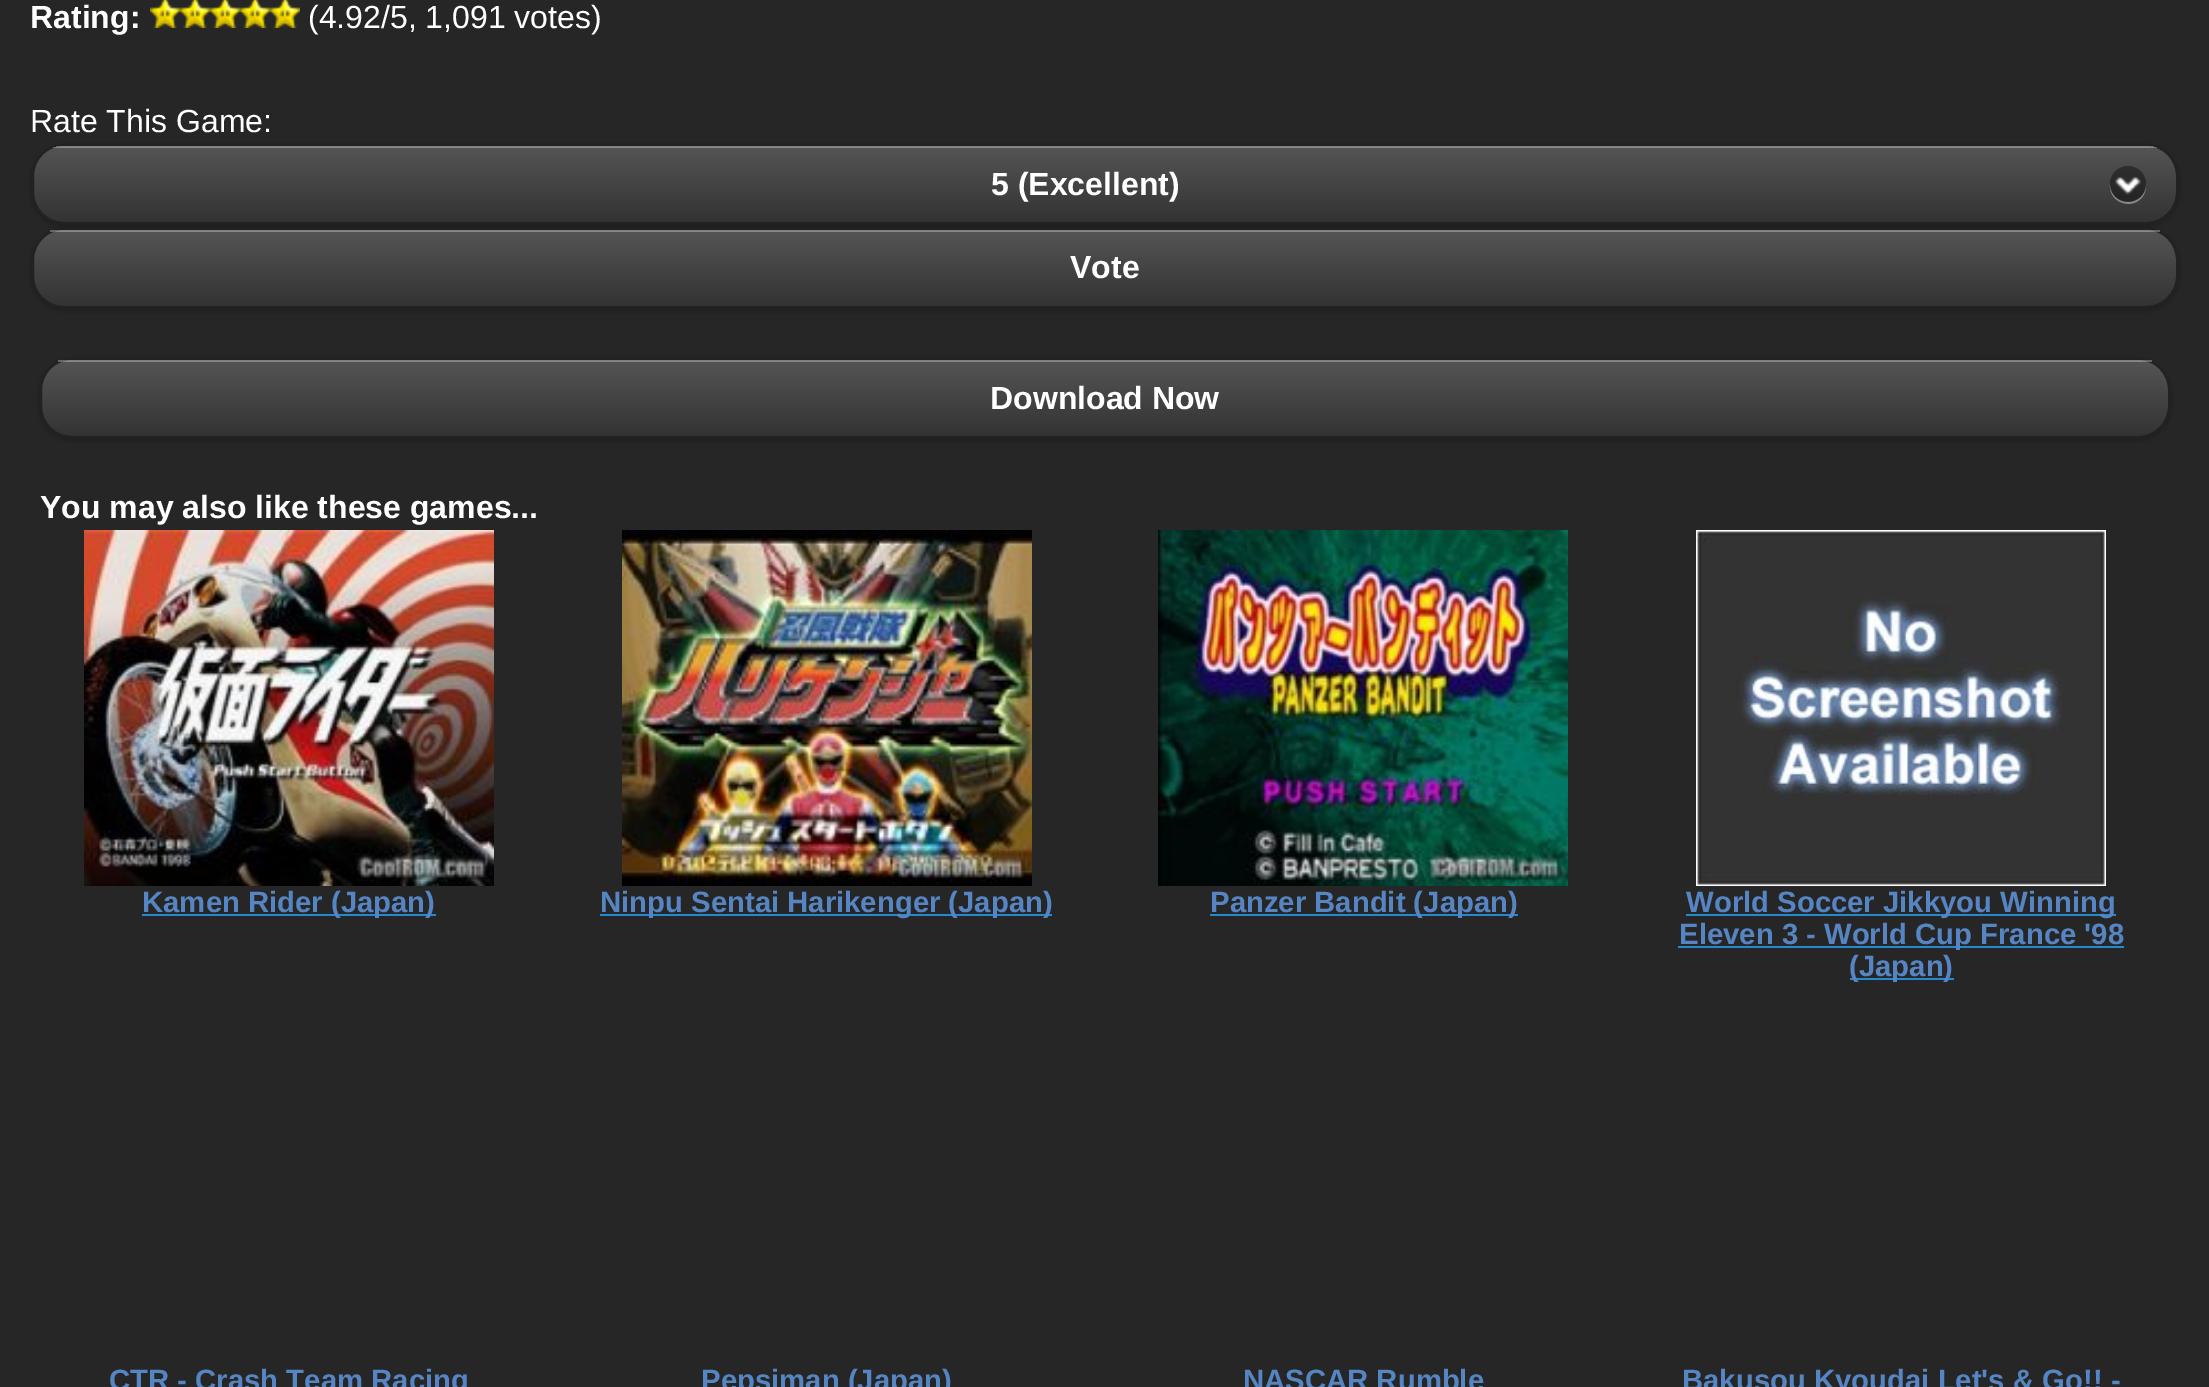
%!PS-Adobe-3.0
%%BoundingBox: 0 0 2209 1387
%%LanguageLevel: 3
%%Pages: 1
%%EndComments
%%BeginProlog
/setink { dup -16 bitshift 255 div exch dup -8 bitshift 255 and 255 div exch 255 and 255 div setrgbcolor } def
/usefont { [ exch dup neg 0 0 3 -1 roll 0 0 ] selectfont } def
/setalpha { dup .setfillconstantalpha .setstrokeconstantalpha } def
/disc { newpath 0 360 arc closepath } def
/rrect { 5 dict begin { /r /h /w /y /x } { exch def } forall
  x r add y moveto x w add y 2 copy h add r arct x w add y h add x 1 index r arct
  x y h add x y r arct x y 2 copy exch w add exch r arct closepath end } def
/softshadow { 12 dict begin { /a /b /q /h /w /y /x } { exch def } forall gsave /was 0 def
  9 -2 -9 { dup b mul 4 div /e exch def 1 sub .425 mul 2.718 exch exp 1 add a .99 .min exch div /now exch def
    1 1 now sub 1 was sub div sub setalpha /was now def
    w h .min e 2 mul add 0 gt { x e sub y e sub w e 2 mul add h e 2 mul add
      q e add b .6 mul add w h .min 2 div e add .min 0 .max rrect fill } if } for grestore end } def
/drawimage { 5 dict begin { /h /w /y /x /name } { exch def } forall
  gsave x y translate w h scale
  w h 8 [w 0 0 h 0 0] name (r) file false 3 colorimage grestore end } def
%%EndProlog
%%BeginSetup
<< /PageSize [2209 1387] /PageUsesTransparency true >> setpagedevice
%%EndSetup
%%Page: 1 1
0 .pushpdf14devicefilter
0 1387 translate 1 -1 scale
4 setmiterlimit
16#262626 setink
0 0 2209 1387 rectfill
/LiberationSans-Bold 32 usefont
16#FFFFFF setink
30 28 moveto (Rating:) show
(img1.raw) 150 0 30 28 drawimage
(img1.raw) 180 0 30 28 drawimage
(img1.raw) 210 0 30 28 drawimage
(img1.raw) 240 0 30 28 drawimage
(img1.raw) 270 0 30 28 drawimage
/LiberationSans-Regular 32 usefont
308 28 moveto (\(4.92/5, 1,091 votes\)) show
30 132 moveto (Rate This Game:) show
16#000000 setink
32 146 2146 80 32 4 0.3 softshadow
gsave 34 146 2142 76 30 rrect clip newpath
<< /ShadingType 2 /ColorSpace /DeviceRGB /Coords [1105 146 1105 222] /Extend [true true] /Function << /FunctionType 2 /Domain [0 1] /C0 [0.333 0.333 0.333] /C1 [0.2 0.2 0.2] /N 1 >> >> shfill grestore
16#222222 setink
2 setlinewidth
33 145 2144 78 31 rrect stroke
gsave
34 146 2142 76 30 rrect clip newpath
0.3 setalpha
16#FFFFFF setink
50 146 2110 2 rectfill
grestore
/LiberationSans-Bold 32 usefont
16#FFFFFF setink
991 195 moveto (5 \(Excellent\)) show
0.4 setalpha
2146 185 moveto 2144.5 207.5 2111.5 207.5 2110 185 curveto 2109 203 2133 211 2143 196 curveto 2145 193 2146 189 2146 185 curveto closepath fill
16#000000 setink
2128 184 18 disc fill
1 setalpha
(img2.raw) 2115 176 26 19 drawimage
32 230 2146 80 32 4 0.3 softshadow
gsave 34 230 2142 76 30 rrect clip newpath
<< /ShadingType 2 /ColorSpace /DeviceRGB /Coords [1105 230 1105 306] /Extend [true true] /Function << /FunctionType 2 /Domain [0 1] /C0 [0.333 0.333 0.333] /C1 [0.2 0.2 0.2] /N 1 >> >> shfill grestore
16#222222 setink
33 229 2144 78 31 rrect stroke
0.3 setalpha
16#FFFFFF setink
50 230 2110 2 rectfill
1 setalpha
1070 278 moveto (Vote) show
16#000000 setink
40 360 2130 80 32 4 0.3 softshadow
gsave 42 360 2126 76 30 rrect clip newpath
<< /ShadingType 2 /ColorSpace /DeviceRGB /Coords [1105 360 1105 436] /Extend [true true] /Function << /FunctionType 2 /Domain [0 1] /C0 [0.333 0.333 0.333] /C1 [0.2 0.2 0.2] /N 1 >> >> shfill grestore
16#222222 setink
41 359 2128 78 31 rrect stroke
0.3 setalpha
16#FFFFFF setink
58 360 2094 2 rectfill
1 setalpha
990 409 moveto (Download Now) show
40 518 moveto (You may also like these games...) show
(img3.raw) 84 530 410 356 drawimage
16#2489CE setink
142 914 294 2 rectfill
/LiberationSans-Bold 29.3 usefont
16#5685C4 setink
142 912 moveto (Kamen Rider \(Japan\)) show
(img4.raw) 622 530 410 356 drawimage
16#2489CE setink
600 914 452 2 rectfill
16#5685C4 setink
600 912 moveto (Ninpu Sentai Harikenger \(Japan\)) show
(img5.raw) 1158 530 410 356 drawimage
16#2489CE setink
1210 914 308 2 rectfill
16#5685C4 setink
1210 912 moveto (Panzer Bandit \(Japan\)) show
(img6.raw) 1696 530 410 356 drawimage
16#2489CE setink
1686 914 430 2 rectfill
16#5685C4 setink
1686 912 moveto (World Soccer Jikkyou Winning) show
16#2489CE setink
1678 946 446 2 rectfill
16#5685C4 setink
1679 944 moveto (Eleven 3 - World Cup France '98) show
16#2489CE setink
1850 978 104 2 rectfill
16#5685C4 setink
[
    [(\(Japan\)) 1849 976]
    [(CTR - Crash Team Racing) 109 1390]
    [(Pepsiman \(Japan\)) 701 1390]
    [(NASCAR Rumble) 1243 1390]
    [(Bakusou Kyoudai Let's & Go!! -) 1682 1390]
] { aload pop moveto show } forall
.poppdf14devicefilter showpage
%%EOF
